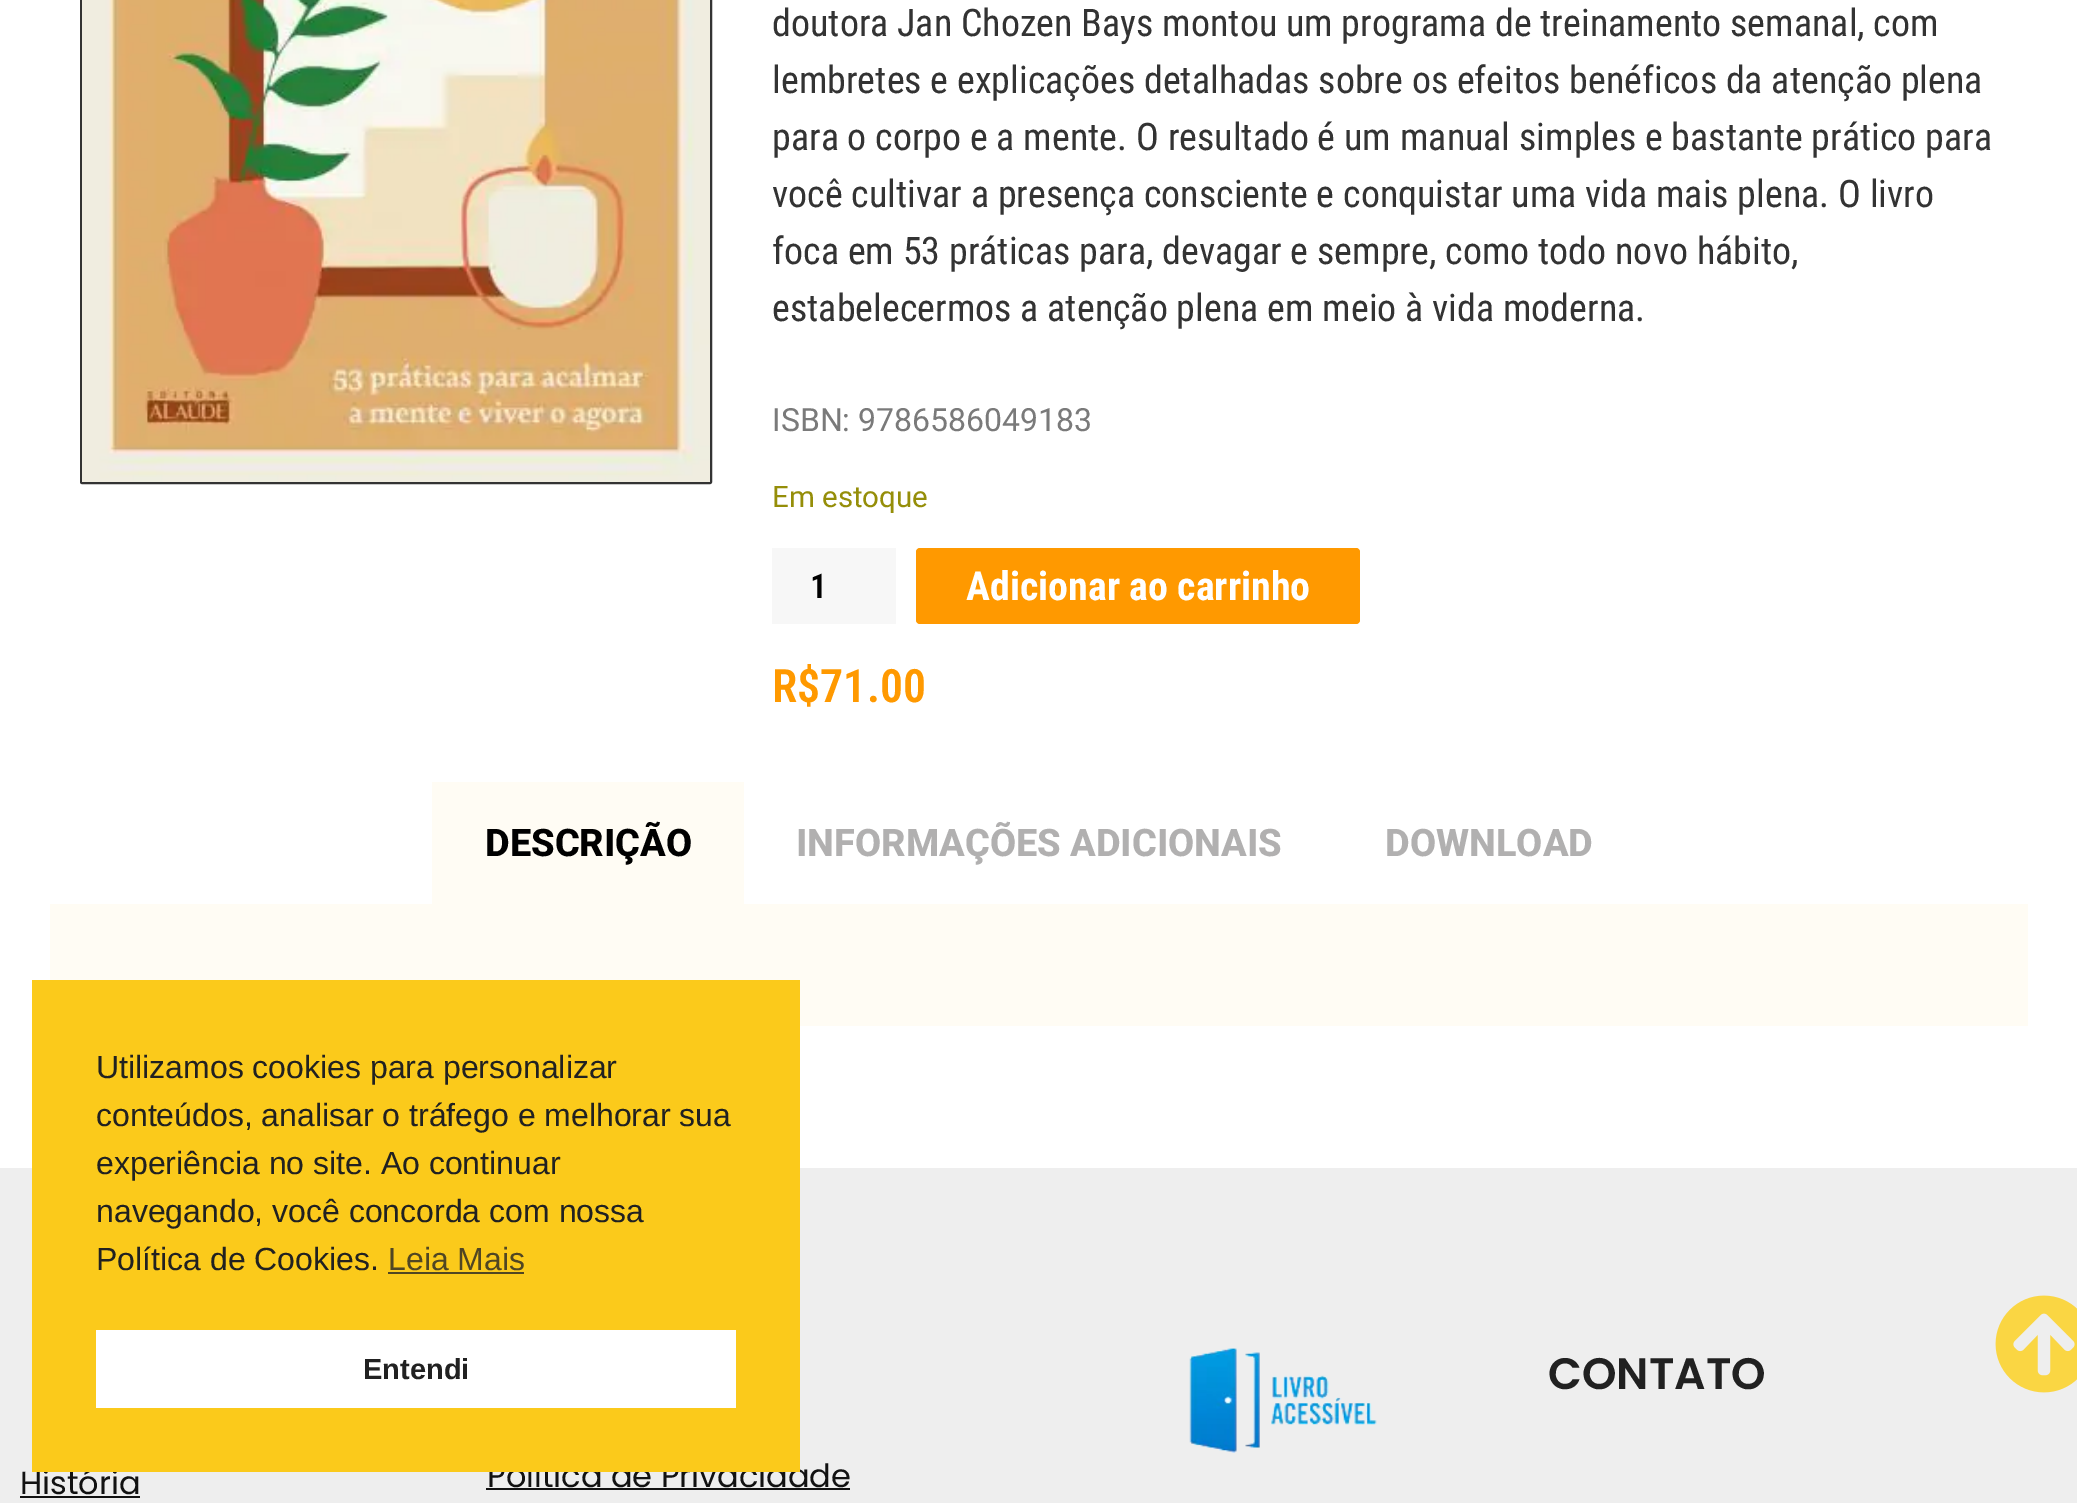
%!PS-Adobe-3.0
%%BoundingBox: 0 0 2077 1503
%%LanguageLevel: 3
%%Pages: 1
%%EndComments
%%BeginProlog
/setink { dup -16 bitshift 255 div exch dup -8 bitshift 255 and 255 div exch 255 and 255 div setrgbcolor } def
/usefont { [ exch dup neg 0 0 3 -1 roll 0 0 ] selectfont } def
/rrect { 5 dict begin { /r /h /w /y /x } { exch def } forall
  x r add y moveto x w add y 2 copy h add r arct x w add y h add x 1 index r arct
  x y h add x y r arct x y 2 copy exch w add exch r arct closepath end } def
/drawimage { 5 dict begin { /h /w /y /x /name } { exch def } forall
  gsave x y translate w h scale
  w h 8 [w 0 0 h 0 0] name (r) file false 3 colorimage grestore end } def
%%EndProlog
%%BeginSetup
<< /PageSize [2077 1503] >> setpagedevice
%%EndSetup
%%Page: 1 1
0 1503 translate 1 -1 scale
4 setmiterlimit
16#FFFFFF setink
0 0 2077 1503 rectfill
16#333333 setink
2 setlinewidth
81 -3 630 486 1 rrect stroke
(img1.raw) 82 0 628 482 drawimage
/RobotoCondensed-Regular 38 usefont
[
    [(doutora Jan Chozen Bays montou um programa de treinamento semanal, com) 772 36]
    [(lembretes e explicações detalhadas sobre os efeitos benéficos da atenção plena) 772 93]
    [(para o corpo e a mente. O resultado é um manual simples e bastante prático para) 772 150]
    [(você cultivar a presença consciente e conquistar uma vida mais plena. O livro) 772 207]
    [(foca em 53 práticas para, devagar e sempre, como todo novo hábito,) 772 264]
    [(estabelecermos a atenção plena em meio à vida moderna.) 772 321]
] { aload pop moveto show } forall
/Roboto-Regular 32 usefont
16#7A7A7A setink
772 431 moveto (ISBN: 9786586049183) show
/Roboto-Regular 29.5 usefont
16#958E09 setink
772 507 moveto (Em estoque) show
16#F7F7F7 setink
772 548 124 76 rectfill
/RobotoCondensed-SemiBold 34 usefont
16#000000 setink
810 598 moveto (1) show
16#FF9900 setink
916 548 444 76 4 rrect fill
/RobotoCondensed-Bold 40 usefont
16#FFFFFF setink
966 600 moveto (Adicionar ao carrinho) show
/RobotoCondensed-SemiBold 46 usefont
16#FF9900 setink
772 702 moveto (R$71.00) show
16#FFFCF4 setink
432 782 312 122 rectfill
/Roboto-ExtraBold 38 usefont
16#000000 setink
485 856 moveto (DESCRIÇÃO) show
16#B1B0B0 setink
796 856 moveto (INFORMAÇÕES ADICIONAIS) show
1385 856 moveto (DOWNLOAD) show
16#FFFCF4 setink
50 904 1978 122 rectfill
16#EEEEEE setink
0 1168 2077 335 rectfill
/Poppins-Regular 32 usefont
16#121212 setink
20 1494 moveto (História) show
487 1487 moveto (Política de Privacidade) show
16#FBCA1B setink
32 980 768 492 rectfill
/LiberationSans-Regular 32 usefont
16#212121 setink
[
    [(Utilizamos cookies para personalizar) 96 1078]
    [(conteúdos, analisar o tráfego e melhorar sua) 96 1126]
    [(experiência no site. Ao continuar) 96 1174]
    [(navegando, você concorda com nossa) 96 1222]
    [(Política de Cookies.) 96 1270]
] { aload pop moveto show } forall
16#504623 setink
388 1270 moveto (Leia Mais) show
388 1272 136 2 rectfill
16#FFFFFF setink
96 1330 640 78 rectfill
/LiberationSans-Bold 29 usefont
16#212121 setink
363 1379 moveto (Entendi) show
(img2.raw) 1189 1348 188 105 drawimage
/Poppins-SemiBold 44 usefont
1548 1389 moveto (CONTATO) show
(img3.raw) 1995 1295 82 98 drawimage
16#121212 setink
20 1496 120 2 rectfill
486 1488 364 2 rectfill
showpage
%%EOF
